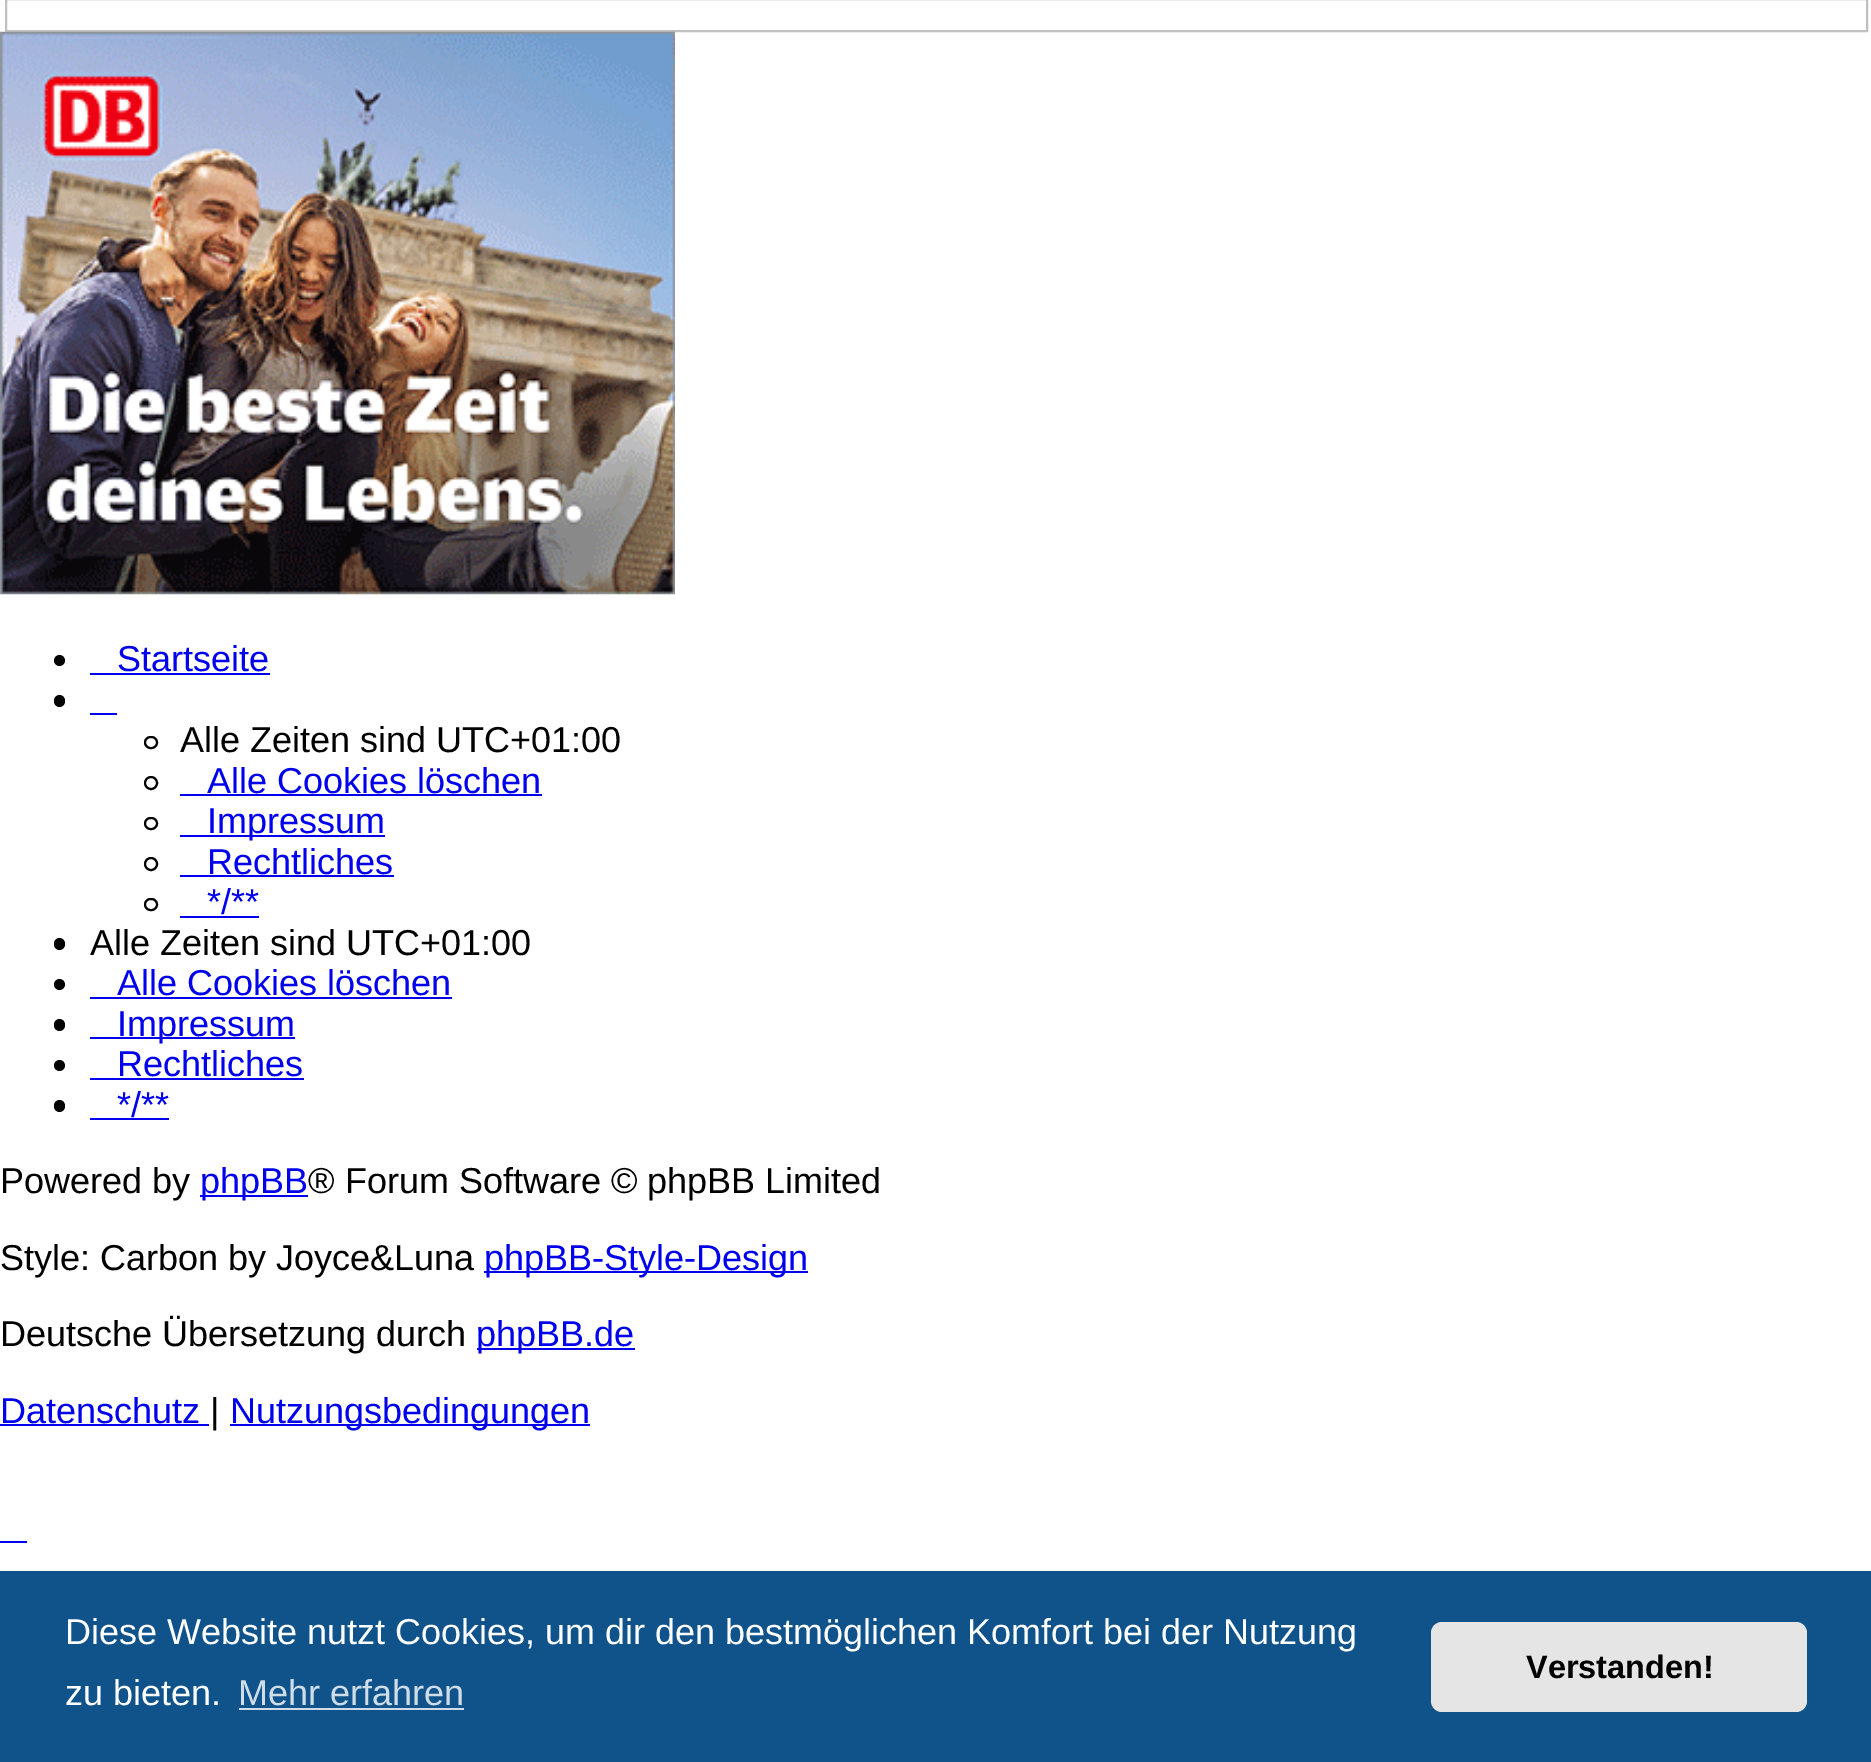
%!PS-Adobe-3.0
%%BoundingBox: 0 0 1871 1762
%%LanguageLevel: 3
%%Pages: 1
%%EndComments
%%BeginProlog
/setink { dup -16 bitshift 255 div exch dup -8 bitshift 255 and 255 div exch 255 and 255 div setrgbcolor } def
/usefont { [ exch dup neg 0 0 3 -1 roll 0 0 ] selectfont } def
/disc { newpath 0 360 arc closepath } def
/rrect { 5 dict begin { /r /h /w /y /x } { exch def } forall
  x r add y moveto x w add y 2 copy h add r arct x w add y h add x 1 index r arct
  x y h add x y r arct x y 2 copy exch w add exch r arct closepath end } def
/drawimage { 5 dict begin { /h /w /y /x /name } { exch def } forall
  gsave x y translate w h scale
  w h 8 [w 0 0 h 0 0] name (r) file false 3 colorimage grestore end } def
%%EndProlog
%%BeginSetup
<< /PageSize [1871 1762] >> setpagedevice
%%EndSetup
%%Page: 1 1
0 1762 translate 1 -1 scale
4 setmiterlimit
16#FFFFFF setink
0 0 1871 1762 rectfill
16#C0C0C0 setink
2 setlinewidth
6 -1 1861 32 rectstroke
(img1.raw) 0 31 675 564 drawimage
16#000000 setink
59.5 660.5 5.5 disc fill
/LiberationSans-Regular 36 usefont
16#0000EE setink
117 671 moveto (Startseite) show
90 673 180 2 rectfill
16#000000 setink
54 695 11 12 5.5 rrect fill
16#0000EE setink
90 713 27 2 rectfill
16#000000 setink
145 737 12 11 5.5 rrect stroke
180 752 moveto (Alle Zeiten sind UTC+01:00) show
151 783 6 disc stroke
16#0000EE setink
207 793 moveto (Alle Cookies löschen) show
180 794 362 2 rectfill
16#000000 setink
145 818 12 11 5.5 rrect stroke
16#0000EE setink
180 835 205 2 rectfill
207 833 moveto (Impressum) show
16#000000 setink
151 864 6 disc stroke
16#0000EE setink
207 874 moveto (Rechtliches) show
180 875 214 2 rectfill
16#000000 setink
145 899 12 11 5.5 rrect stroke
16#0000EE setink
207 914 moveto (*/**) show
180 916 79 2 rectfill
16#000000 setink
54 938 11 12 5.5 rrect fill
90 955 moveto (Alle Zeiten sind UTC+01:00) show
59.5 984.5 5.5 disc fill
16#0000EE setink
117 995 moveto (Alle Cookies löschen) show
90 997 362 2 rectfill
16#000000 setink
54 1019 11 12 5.5 rrect fill
16#0000EE setink
90 1037 205 2 rectfill
117 1036 moveto (Impressum) show
16#000000 setink
59.5 1065.5 5.5 disc fill
16#0000EE setink
117 1076 moveto (Rechtliches) show
90 1078 214 2 rectfill
16#000000 setink
54 1100 11 12 5.5 rrect fill
16#0000EE setink
117 1117 moveto (*/**) show
90 1118 79 2 rectfill
16#000000 setink
0 1193 moveto (Powered by) show
16#0000EE setink
200 1195 108 2 rectfill
200 1193 moveto (phpBB) show
16#000000 setink
308 1193 moveto (® Forum Software © phpBB Limited) show
0 1270 moveto (Style: Carbon by Joyce&Luna) show
16#0000EE setink
484 1271 324 2 rectfill
484 1270 moveto (phpBB-Style-Design) show
16#000000 setink
0 1346 moveto (Deutsche Übersetzung durch) show
16#0000EE setink
477 1348 158 2 rectfill
476 1346 moveto (phpBB.de) show
0 1423 moveto (Datenschutz) show
0 1424 209 2 rectfill
16#000000 setink
210 1423 moveto (|) show
16#0000EE setink
230 1424 360 2 rectfill
230 1423 moveto (Nutzungsbedingungen) show
0 1541 27 2 rectfill
16#0F538A setink
0 1571 1871 191 rectfill
16#FFFFFF setink
65 1644 moveto (Diese Website nutzt Cookies, um dir den bestmöglichen Komfort bei der Nutzung) show
65 1705 moveto (zu bieten.) show
16#CFDDE8 setink
238 1705 moveto (Mehr erfahren) show
239 1708 225 2 rectfill
16#E5E5E5 setink
1431 1622 376 90 11 rrect fill
/LiberationSans-Bold 32.5 usefont
16#000000 setink
1526 1678 moveto (Verstanden!) show
showpage
%%EOF
